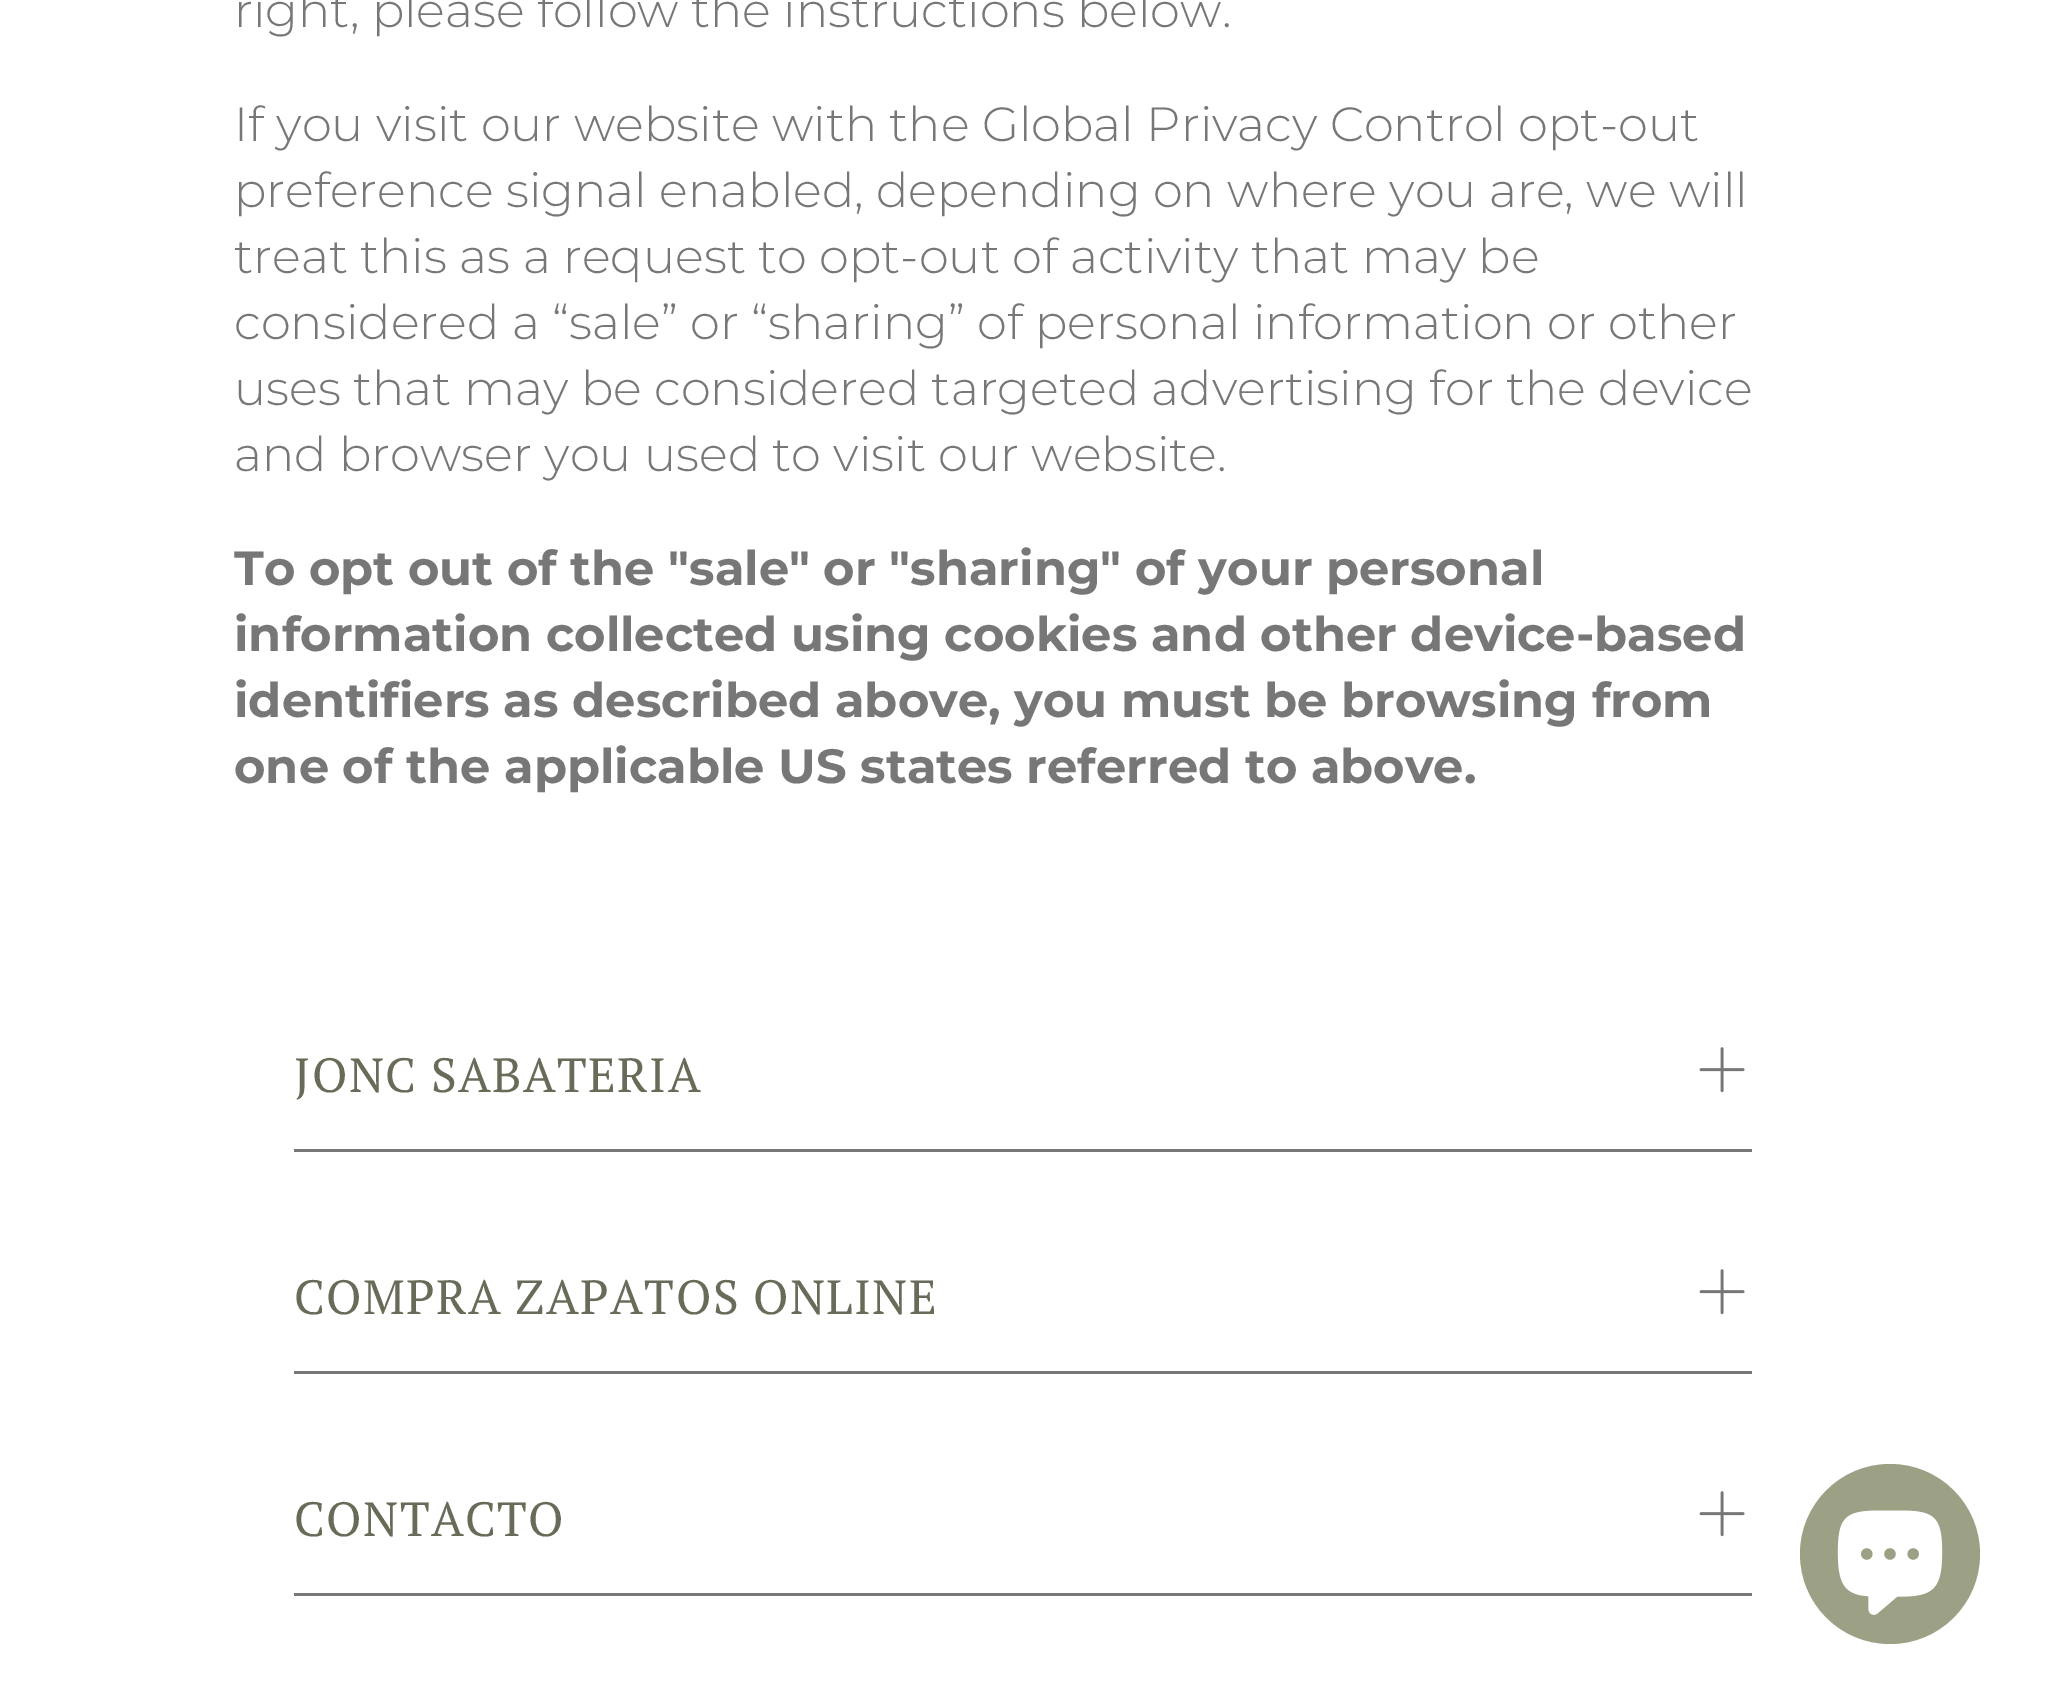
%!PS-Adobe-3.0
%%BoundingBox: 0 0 2045 1705
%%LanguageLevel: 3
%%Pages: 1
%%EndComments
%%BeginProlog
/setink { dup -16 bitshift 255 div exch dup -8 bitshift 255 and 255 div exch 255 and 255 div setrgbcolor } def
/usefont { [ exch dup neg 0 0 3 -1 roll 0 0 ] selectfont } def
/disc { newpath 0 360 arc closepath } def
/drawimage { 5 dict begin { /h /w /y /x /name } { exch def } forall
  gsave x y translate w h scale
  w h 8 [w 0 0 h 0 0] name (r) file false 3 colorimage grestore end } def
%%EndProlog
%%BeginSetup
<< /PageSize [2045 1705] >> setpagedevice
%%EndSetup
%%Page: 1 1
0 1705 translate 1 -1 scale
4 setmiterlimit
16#FFFFFF setink
0 0 2045 1705 rectfill
/Montserrat-Light 48 usefont
16#777777 setink
[
    [(right, please follow the instructions below.) 234 27]
    [(If you visit our website with the Global Privacy Control opt-out) 234 141]
    [(preference signal enabled, depending on where you are, we will) 234 207]
    [(treat this as a request to opt-out of activity that may be) 234 273]
    [(considered a “sale” or “sharing” of personal information or other) 234 339]
    [(uses that may be considered targeted advertising for the device) 234 405]
    [(and browser you used to visit our website.) 234 471]
] { aload pop moveto show } forall
/Montserrat-Bold 48 usefont
[
    [(To opt out of the "sale" or "sharing" of your personal) 234 585]
    [(information collected using cookies and other device-based) 234 651]
    [(identifiers as described above, you must be browsing from) 234 717]
    [(one of the applicable US states referred to above.) 234 783]
] { aload pop moveto show } forall
294 1149 1458 3 rectfill
/PTSerif-Regular 48 usefont
16#696B59 setink
294 1092 moveto 1.4 0 (JONC SABATERIA) ashow
(img1.raw) 1699 1047 46 46 drawimage
16#777777 setink
294 1371 1458 3 rectfill
16#696B59 setink
294 1314 moveto 1.4 0 (COMPRA ZAPATOS ONLINE) ashow
(img1.raw) 1699 1269 46 46 drawimage
16#777777 setink
294 1593 1458 3 rectfill
16#696B59 setink
294 1536 moveto 1.4 0 (CONTACTO) ashow
(img1.raw) 1699 1491 46 46 drawimage
16#9CA084 setink
1890 1554 90 disc fill
(img2.raw) 1837 1510 106 105 drawimage
showpage
%%EOF
